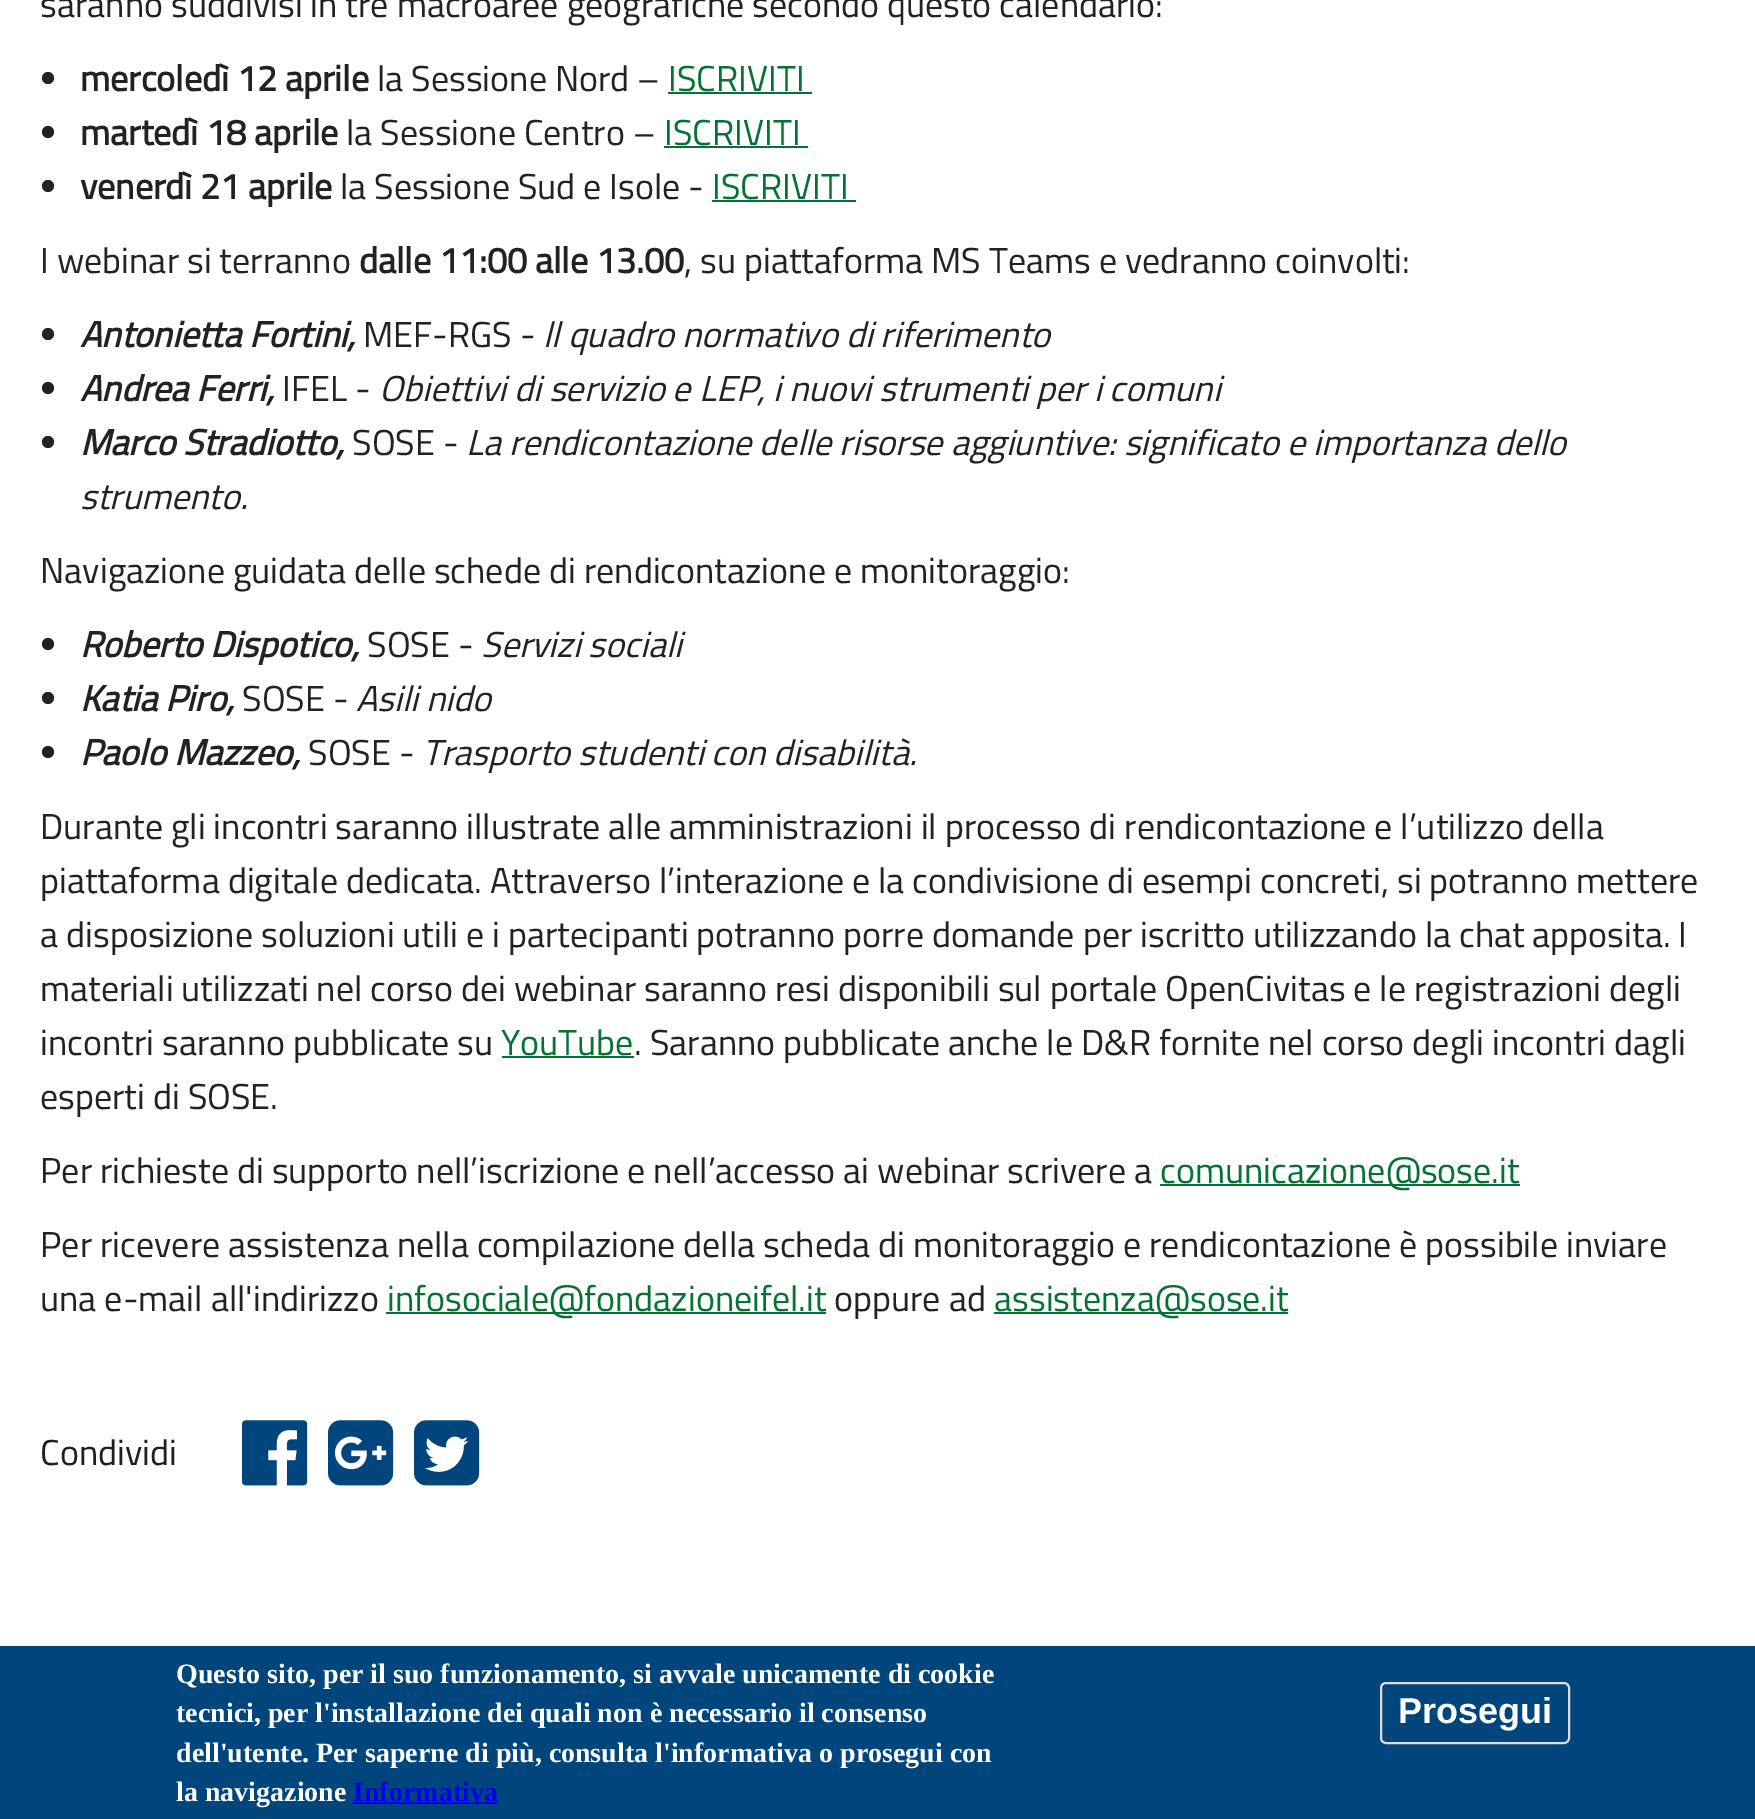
%!PS-Adobe-3.0
%%BoundingBox: 0 0 1755 1819
%%LanguageLevel: 3
%%Pages: 1
%%EndComments
%%BeginProlog
/setink { dup -16 bitshift 255 div exch dup -8 bitshift 255 and 255 div exch 255 and 255 div setrgbcolor } def
/usefont { [ exch dup neg 0 0 3 -1 roll 0 0 ] selectfont } def
/disc { newpath 0 360 arc closepath } def
/rrect { 5 dict begin { /r /h /w /y /x } { exch def } forall
  x r add y moveto x w add y 2 copy h add r arct x w add y h add x 1 index r arct
  x y h add x y r arct x y 2 copy exch w add exch r arct closepath end } def
/drawimage { 5 dict begin { /h /w /y /x /name } { exch def } forall
  gsave x y translate w h scale
  w h 8 [w 0 0 h 0 0] name (r) file false 3 colorimage grestore end } def
%%EndProlog
%%BeginSetup
<< /PageSize [1755 1819] >> setpagedevice
%%EndSetup
%%Page: 1 1
0 1819 translate 1 -1 scale
4 setmiterlimit
16#FFFFFF setink
0 0 1755 1819 rectfill
/TitilliumWeb-Regular 36 usefont
16#222222 setink
40 17 moveto (saranno suddivisi in tre macroaree geografiche secondo questo calendario:) show
48 78 6 disc fill
/TitilliumWeb-Bold 36 usefont
80 91 moveto (mercoledì 12 aprile) show
/TitilliumWeb-Regular 36 usefont
377 91 moveto (la Sessione Nord –) show
16#047233 setink
668 91 moveto (ISCRIVITI) show
668 92 144 2 rectfill
16#222222 setink
48 132 6 disc fill
/TitilliumWeb-Bold 36 usefont
80 145 moveto (martedì 18 aprile) show
/TitilliumWeb-Regular 36 usefont
346 145 moveto (la Sessione Centro –) show
16#047233 setink
664 145 moveto (ISCRIVITI) show
664 146 144 2 rectfill
16#222222 setink
48 186 6 disc fill
/TitilliumWeb-Bold 36 usefont
80 199 moveto (venerdì 21 aprile) show
/TitilliumWeb-Regular 36 usefont
340 199 moveto (la Sessione Sud e Isole -) show
16#047233 setink
712 199 moveto (ISCRIVITI) show
712 200 144 2 rectfill
16#222222 setink
40 273 moveto (I webinar si terranno) show
/TitilliumWeb-Bold 36 usefont
359 273 moveto (dalle 11:00 alle 13.00) show
/TitilliumWeb-Regular 36 usefont
684 273 moveto (, su piattaforma MS Teams e vedranno coinvolti:) show
48 334 6 disc fill
/TitilliumWeb-BoldItalic 36 usefont
80 347 moveto (Antonietta Fortini,) show
/TitilliumWeb-Regular 36 usefont
363 347 moveto (MEF-RGS -) show
/TitilliumWeb-Italic 36 usefont
543 347 moveto (ll quadro normativo di riferimento) show
48 388 6 disc fill
/TitilliumWeb-BoldItalic 36 usefont
80 401 moveto (Andrea Ferri,) show
/TitilliumWeb-Regular 36 usefont
282 401 moveto (IFEL -) show
/TitilliumWeb-Italic 36 usefont
379 401 moveto (Obiettivi di servizio e LEP, i nuovi strumenti per i comuni) show
48 442 6 disc fill
/TitilliumWeb-BoldItalic 36 usefont
80 455 moveto (Marco Stradiotto,) show
/TitilliumWeb-Regular 36 usefont
352 455 moveto (SOSE -) show
/TitilliumWeb-Italic 36 usefont
466 455 moveto (La rendicontazione delle risorse aggiuntive: significato e importanza dello) show
80 509 moveto (strumento.) show
/TitilliumWeb-Regular 36 usefont
40 583 moveto (Navigazione guidata delle schede di rendicontazione e monitoraggio:) show
48 644 6 disc fill
/TitilliumWeb-BoldItalic 36 usefont
80 657 moveto (Roberto Dispotico,) show
/TitilliumWeb-Regular 36 usefont
367 657 moveto (SOSE -) show
/TitilliumWeb-Italic 36 usefont
481 657 moveto (Servizi sociali) show
48 698 6 disc fill
/TitilliumWeb-BoldItalic 36 usefont
80 711 moveto (Katia Piro,) show
/TitilliumWeb-Regular 36 usefont
242 711 moveto (SOSE -) show
/TitilliumWeb-Italic 36 usefont
356 711 moveto (Asili nido) show
48 752 6 disc fill
/TitilliumWeb-BoldItalic 36 usefont
80 765 moveto (Paolo Mazzeo,) show
/TitilliumWeb-Regular 36 usefont
308 765 moveto (SOSE -) show
/TitilliumWeb-Italic 36 usefont
422 765 moveto (Trasporto studenti con disabilità.) show
/TitilliumWeb-Regular 36 usefont
[
    [(Durante gli incontri saranno illustrate alle amministrazioni il processo di rendicontazione e l’utilizzo della) 40 839]
    [(piattaforma digitale dedicata. Attraverso l’interazione e la condivisione di esempi concreti, si potranno mettere) 40 893]
    [(a disposizione soluzioni utili e i partecipanti potranno porre domande per iscritto utilizzando la chat apposita. I) 40 947]
    [(materiali utilizzati nel corso dei webinar saranno resi disponibili sul portale OpenCivitas e le registrazioni degli) 40 1001]
    [(incontri saranno pubblicate su) 40 1055]
] { aload pop moveto show } forall
16#047233 setink
501 1055 moveto (YouTube) show
502 1056 132 2 rectfill
16#222222 setink
[
    [(. Saranno pubblicate anche le D&R fornite nel corso degli incontri dagli) 634 1055]
    [(esperti di SOSE.) 40 1109]
    [(Per richieste di supporto nell’iscrizione e nell’accesso ai webinar scrivere a) 40 1183]
] { aload pop moveto show } forall
16#047233 setink
1160 1184 360 2 rectfill
1160 1183 moveto (comunicazione@sose.it) show
16#222222 setink
40 1257 moveto (Per ricevere assistenza nella compilazione della scheda di monitoraggio e rendicontazione è possibile inviare) show
40 1311 moveto (una e-mail all'indirizzo) show
16#047233 setink
386 1312 440 2 rectfill
387 1311 moveto (infosociale@fondazioneifel.it) show
16#222222 setink
834 1311 moveto (oppure ad) show
16#047233 setink
994 1312 294 2 rectfill
994 1311 moveto (assistenza@sose.it) show
16#1C2024 setink
40 1465 moveto (Condividi) show
(img1.raw) 242 1420 66 66 drawimage
(img2.raw) 328 1420 66 66 drawimage
(img3.raw) 414 1420 66 66 drawimage
16#00457C setink
0 1646 1755 173 rectfill
/LiberationSerif-Bold 28 usefont
16#FFFFFF setink
[
    [(Questo sito, per il suo funzionamento, si avvale unicamente di cookie) 176 1683]
    [(tecnici, per l'installazione dei quali non è necessario il consenso) 176 1722]
    [(dell'utente. Per saperne di più, consulta l'informativa o prosegui con) 176 1762]
    [(la navigazione) 176 1801]
] { aload pop moveto show } forall
16#0000EE setink
352 1802 146 2 rectfill
353 1801 moveto (Informativa) show
16#DCDCDC setink
2 setlinewidth
1381 1683 188 60 5 rrect stroke
/LiberationSans-Bold 36 usefont
16#FFFFFF setink
1398 1723 moveto (Prosegui) show
showpage
%%EOF
